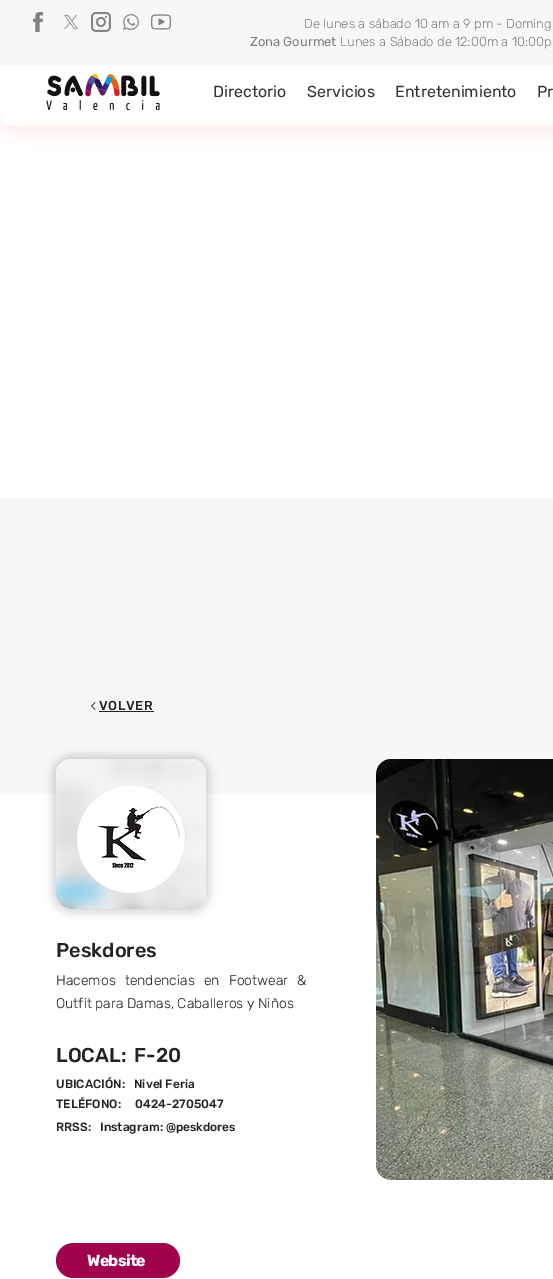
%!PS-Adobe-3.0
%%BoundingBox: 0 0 553 1279
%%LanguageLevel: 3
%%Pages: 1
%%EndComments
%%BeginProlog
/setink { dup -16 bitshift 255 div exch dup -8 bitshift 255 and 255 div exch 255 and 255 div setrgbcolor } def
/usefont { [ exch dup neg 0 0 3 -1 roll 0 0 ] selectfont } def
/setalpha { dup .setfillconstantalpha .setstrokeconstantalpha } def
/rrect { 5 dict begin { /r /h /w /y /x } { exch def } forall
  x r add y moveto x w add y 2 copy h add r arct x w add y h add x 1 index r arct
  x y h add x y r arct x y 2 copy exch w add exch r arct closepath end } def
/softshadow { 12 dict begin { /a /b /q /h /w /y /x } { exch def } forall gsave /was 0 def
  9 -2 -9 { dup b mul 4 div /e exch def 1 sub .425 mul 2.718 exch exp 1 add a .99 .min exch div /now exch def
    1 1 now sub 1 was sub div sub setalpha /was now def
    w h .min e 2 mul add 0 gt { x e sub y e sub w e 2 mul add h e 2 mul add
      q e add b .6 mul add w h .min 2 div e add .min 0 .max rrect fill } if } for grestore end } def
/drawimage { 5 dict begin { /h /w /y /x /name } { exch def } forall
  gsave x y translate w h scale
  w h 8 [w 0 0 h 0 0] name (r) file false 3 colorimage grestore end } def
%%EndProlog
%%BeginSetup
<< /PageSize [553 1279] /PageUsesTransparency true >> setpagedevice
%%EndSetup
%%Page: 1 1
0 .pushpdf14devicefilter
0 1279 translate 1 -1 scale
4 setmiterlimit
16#FFFFFF setink
0 0 553 1279 rectfill
16#ED7743 setink
4 4 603 126 15 13 0.19 softshadow
16#FFFFFF setink
0 0 moveto 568 0 lineto 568 111 lineto 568 119.5 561.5 126 553 126 curveto 15 126 lineto 6.5 126 0 119.5 0 111 curveto closepath fill
16#F7F7F7 setink
0 0 553 65 rectfill
(img1.raw) 32 12 12 20 drawimage
(img2.raw) 64 14 14 16 drawimage
(img3.raw) 91 12 20 20 drawimage
(img4.raw) 123 14 17 16 drawimage
(img5.raw) 151 14 20 16 drawimage
/Rubik-Light 13 usefont
16#808080 setink
304 28 moveto (De lunes a sábado 10 am a 9 pm - Doming) show
/Rubik-Regular 13 usefont
250 46 moveto (Zona Gourmet) show
/Rubik-Light 13 usefont
340 46 moveto (Lunes a Sábado de 12:00m a 10:00p) show
(img6.raw) 46 74 114 36 drawimage
/Rubik-Regular 16 usefont
16#333333 setink
[
    [(Directorio) 213 97]
    [(Servicios) 307 97]
    [(Entretenimiento) 395 97]
    [(Pr) 537 97]
] { aload pop moveto show } forall
16#F7F7F7 setink
0 499 553 295 rectfill
(img7.raw) 91 702 5 8 drawimage
/Rubik-Medium 13 usefont
16#242323 setink
99 710 moveto 0.5 0 (VOLVER) ashow
99 711 55 1 rectfill
16#000000 setink
53 756 156 156 18 5 0.18 softshadow
16#FFFFFF setink
56 759 150 150 15 rrect fill
(img8.raw) 56 759 150 150 drawimage
16#E8E6E6 setink
376 759 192 421 15 rrect fill
(img9.raw) 376 759 177 421 drawimage
/Rubik-Medium 20 usefont
16#242323 setink
56 957 moveto (Peskdores) show
/Rubik-Light 14 usefont
56 985 moveto 5.5 0 32 (Hacemos tendencias en Footwear &) widthshow
56 1008 moveto (Outfit para Damas, Caballeros y Niños) show
/Rubik-Medium 20 usefont
56 1062 moveto (LOCAL:) show
134 1062 moveto (F-20) show
/Rubik-Medium 12 usefont
[
    [(UBICACIÓN:) 56 1088]
    [(Nivel Feria) 134 1088]
    [(TELÉFONO:) 56 1108]
    [(0424-2705047) 135 1108]
    [(RRSS:) 56 1131]
    [(Instagram: @peskdores) 100 1131]
] { aload pop moveto show } forall
16#A0034E setink
56 1243 124 35 17.5 rrect fill
/Rubik-Bold 16 usefont
16#FFFFFF setink
87 1266 moveto -0.75 0 (Website) ashow
.poppdf14devicefilter showpage
%%EOF
